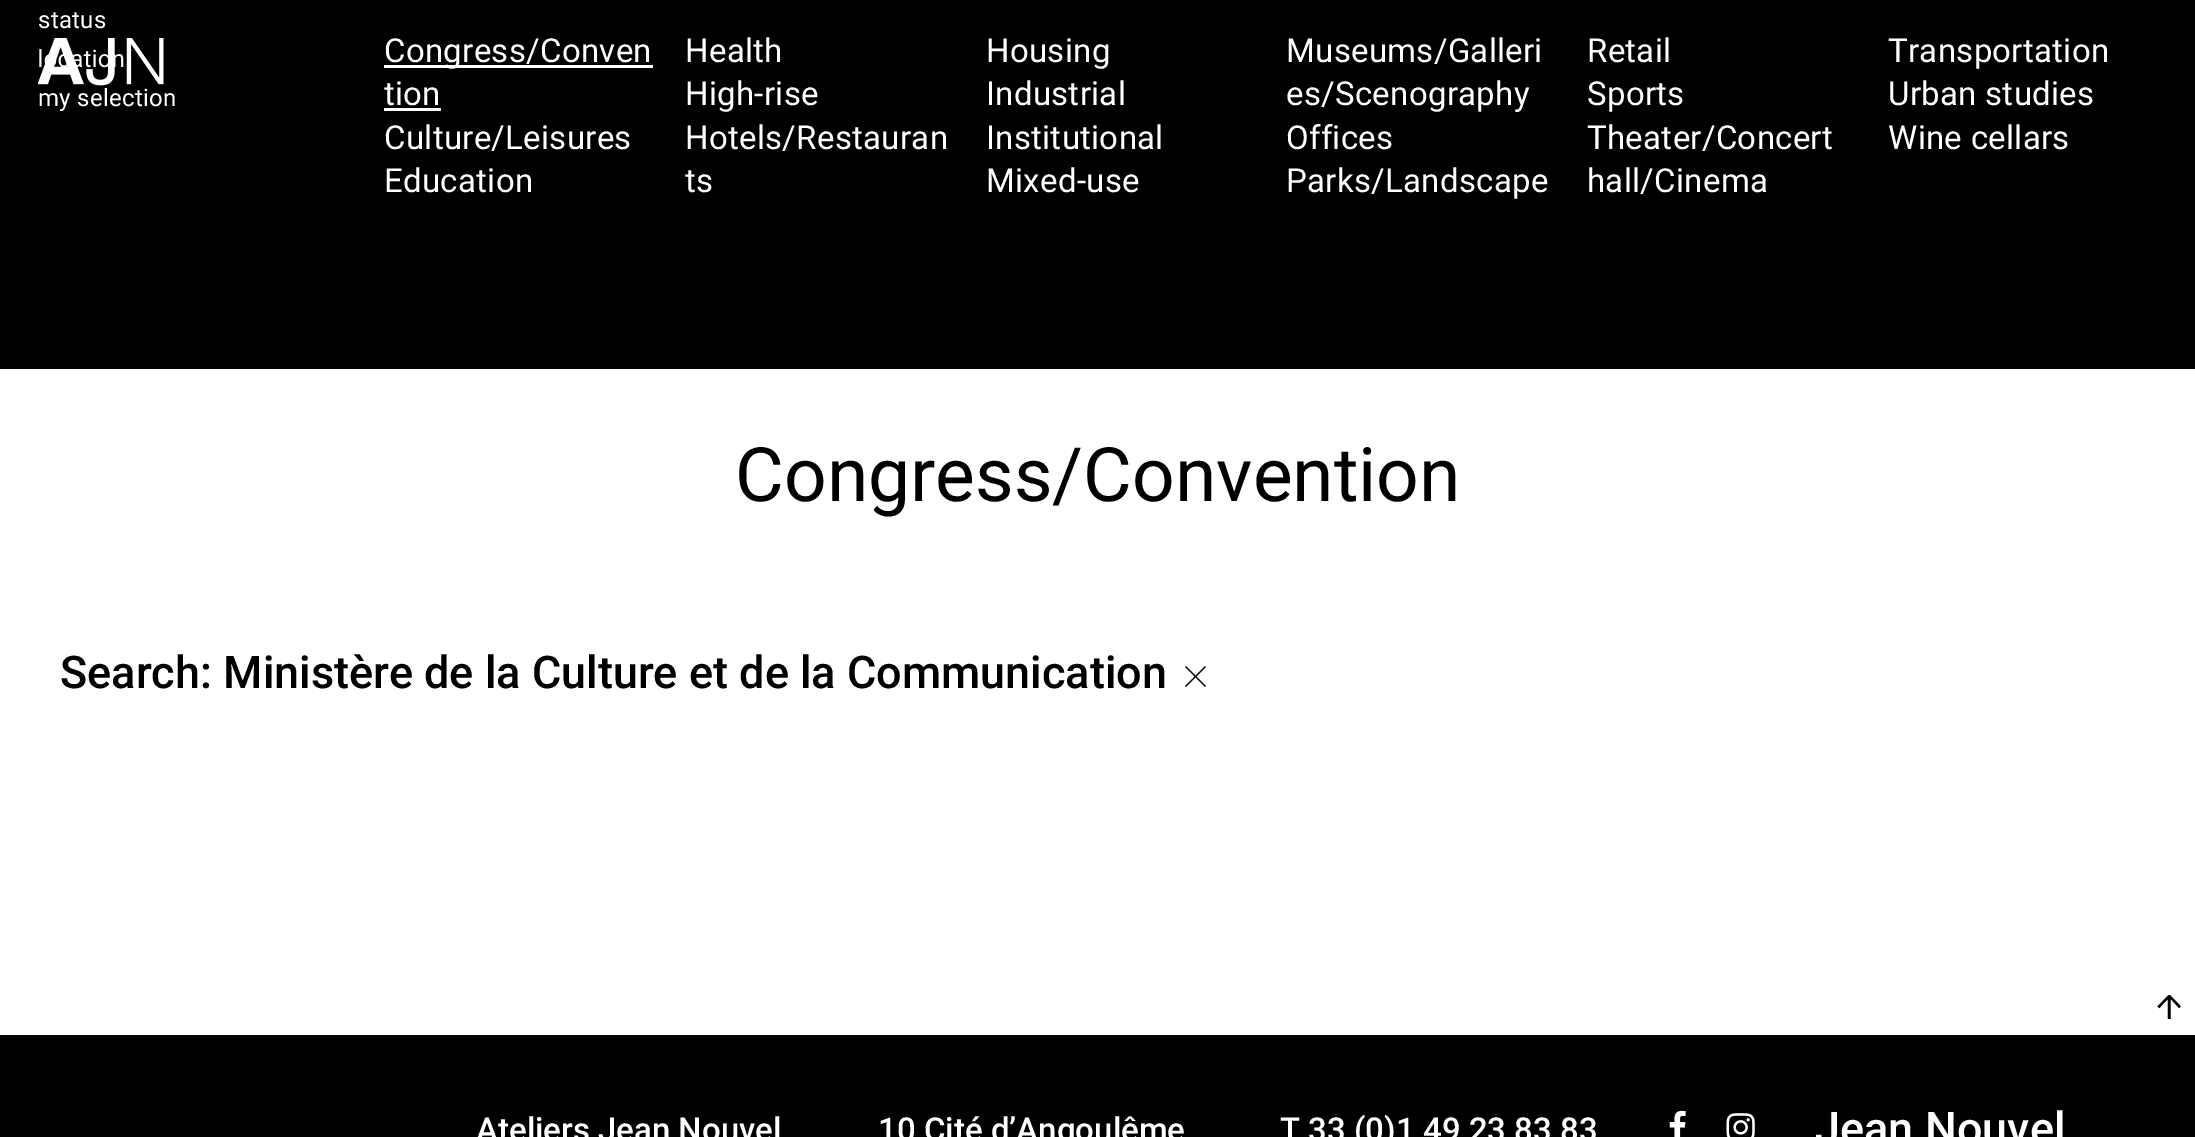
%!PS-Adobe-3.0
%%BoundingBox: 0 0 2195 1137
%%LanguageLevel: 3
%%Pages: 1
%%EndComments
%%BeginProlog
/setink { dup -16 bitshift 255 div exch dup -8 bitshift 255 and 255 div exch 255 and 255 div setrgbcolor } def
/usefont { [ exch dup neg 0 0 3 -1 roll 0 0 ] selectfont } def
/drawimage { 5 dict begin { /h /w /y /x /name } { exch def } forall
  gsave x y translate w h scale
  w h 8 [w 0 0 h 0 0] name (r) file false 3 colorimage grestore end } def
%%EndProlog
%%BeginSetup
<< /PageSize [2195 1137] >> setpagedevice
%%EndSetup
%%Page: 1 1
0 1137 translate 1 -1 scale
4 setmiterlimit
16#FFFFFF setink
0 0 2195 1137 rectfill
16#000000 setink
0 0 2195 369 rectfill
/Roboto-Regular 24 usefont
16#FFFFFF setink
38 28 moveto 0.25 0 (status) ashow
38 67 moveto 0.25 0 (l) ashow
84 67 moveto 0.25 0 (ti) ashow
38 106 moveto 0.25 0 (my selection) ashow
384 65 269 3 rectfill
/Roboto-Regular 33 usefont
384 62 moveto 0.3 0 (Congress/Conven) ashow
384 105 moveto 0.3 0 (tion) ashow
384 108 57 3 rectfill
685 62 moveto 0.3 0 (Health) ashow
986 62 moveto 0.3 0 (Housing) ashow
1286 62 moveto 0.3 0 (Museums/Galleri) ashow
1286 105 moveto 0.3 0 (es/Scenography) ashow
1587 62 moveto 0.3 0 (Retail) ashow
1888 62 moveto 0.3 0 (Transportation) ashow
685 105 moveto 0.3 0 (High-rise) ashow
986 105 moveto 0.3 0 (Industrial) ashow
1587 105 moveto 0.3 0 (Sports) ashow
1888 105 moveto 0.3 0 (Urban studies) ashow
384 149 moveto 0.3 0 (Culture/Leisures) ashow
685 149 moveto 0.3 0 (Hotels/Restauran) ashow
685 192 moveto 0.3 0 (ts) ashow
986 149 moveto 0.3 0 (Institutional) ashow
1286 149 moveto 0.3 0 (Offices) ashow
1587 149 moveto 0.3 0 (Theater/Concert) ashow
1587 192 moveto 0.3 0 (hall/Cinema) ashow
1888 149 moveto 0.3 0 (Wine cellars) ashow
384 192 moveto 0.3 0 (Education) ashow
986 192 moveto 0.3 0 (Mixed-use) ashow
1286 192 moveto 0.3 0 (Parks/Landscape) ashow
/Roboto-Regular 75 usefont
16#000000 setink
735 501 moveto (Congress/Convention) show
/Roboto-Medium 45 usefont
60 688 moveto (Search: Ministère de la Culture et de la Communication) show
(img1.raw) 1185 666 21 21 drawimage
(img2.raw) 38 38 126 48 drawimage
0 1035 2195 102 rectfill
(img3.raw) 2157 995 24 24 drawimage
/Roboto-Medium 33 usefont
16#FFFFFF setink
[
    [(Ateliers Jean Nouvel) 476 1141]
    [(10 Cité d’Angoulême) 878 1141]
    [(T 33 \(0\)1 49 23 83 83) 1280 1141]
] { aload pop moveto show } forall
(img4.raw) 1669 1110 17 27 drawimage
(img5.raw) 1726 1113 29 24 drawimage
/Roboto-Medium 45 usefont
1815 1144 moveto (Jean Nouvel) show
showpage
%%EOF
